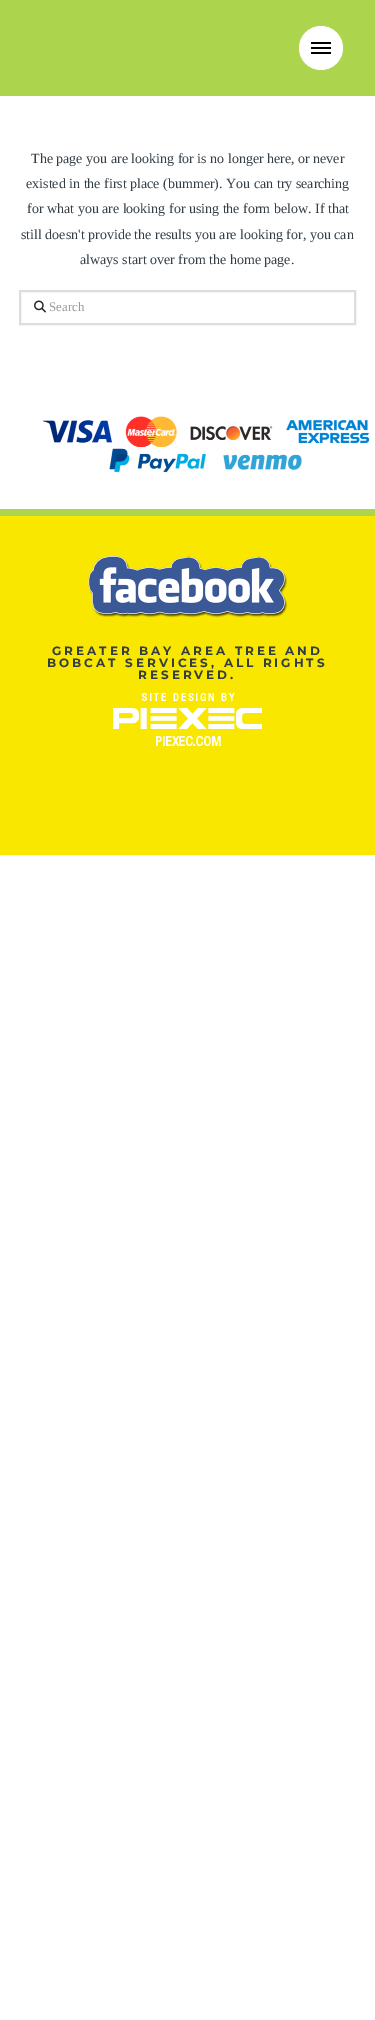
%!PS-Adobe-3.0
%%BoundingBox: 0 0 375 2020
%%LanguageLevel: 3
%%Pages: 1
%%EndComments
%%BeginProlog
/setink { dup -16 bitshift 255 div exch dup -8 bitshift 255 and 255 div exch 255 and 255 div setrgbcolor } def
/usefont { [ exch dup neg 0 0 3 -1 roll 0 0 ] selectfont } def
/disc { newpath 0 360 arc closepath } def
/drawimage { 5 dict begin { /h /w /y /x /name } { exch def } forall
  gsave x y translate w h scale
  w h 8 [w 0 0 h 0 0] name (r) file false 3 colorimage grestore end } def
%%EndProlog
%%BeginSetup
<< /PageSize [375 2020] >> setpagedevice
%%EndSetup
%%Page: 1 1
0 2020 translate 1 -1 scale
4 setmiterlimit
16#FFFFFF setink
0 0 375 2020 rectfill
16#ADD44D setink
0 0 375 96 rectfill
16#FFFFFF setink
321 48 22 disc fill
[
    [311 42 20 2 16#000000]
    [311 47 20 2 16#000000]
    [311 52 20 2 16#000000]
] { aload pop setink rectfill } forall
/LiberationSerif-Regular 14 usefont
16#333D45 setink
[
    [(The page you are looking for is no longer here, or never) 31 163]
    [(existed in the first place \(bummer\). You can try searching) 26 188]
    [(for what you are looking for using the form below. If that) 27 213]
    [(still doesn't provide the results you are looking for, you can) 21 239]
    [(always start over from the home page.) 80 264]
] { aload pop moveto show } forall
16#DDDDDD setink
2 setlinewidth
20 291 335 33 rectstroke
(img1.raw) 34 300 12 13 drawimage
/LiberationSerif-Regular 13 usefont
16#999999 setink
49 311 moveto (Search) show
(img2.raw) 43 416 327 57 drawimage
16#FAE700 setink
0 516 375 339 rectfill
16#ADD44D setink
0 509 375 7 rectfill
(img3.raw) 88 556 200 62 drawimage
/Montserrat-Bold 12 usefont
16#333D45 setink
52 655 moveto 3 0 (GREATER BAY AREA TREE AND) ashow
47 667 moveto 3 0 (BOBCAT SERVICES, ALL RIGHTS) ashow
138 679 moveto 3 0 (RESERVED.) ashow
(img4.raw) 113 693 149 53 drawimage
showpage
%%EOF
